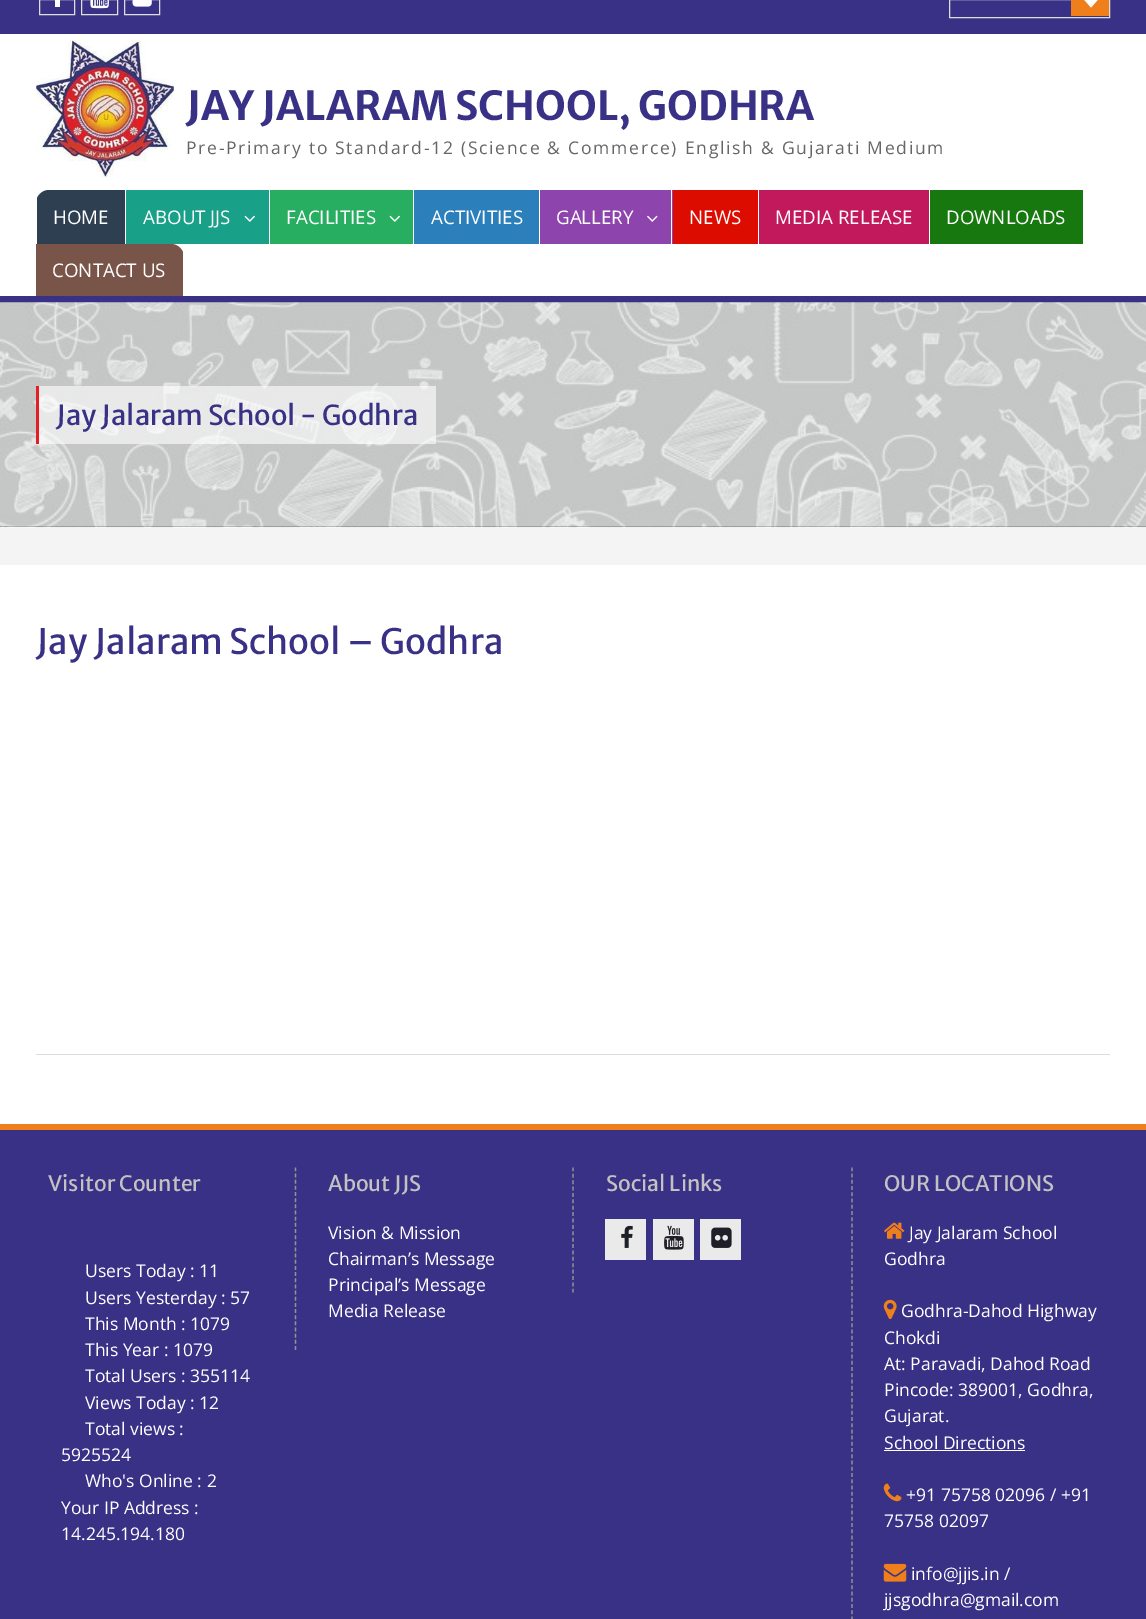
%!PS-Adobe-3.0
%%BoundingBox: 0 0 1146 1619
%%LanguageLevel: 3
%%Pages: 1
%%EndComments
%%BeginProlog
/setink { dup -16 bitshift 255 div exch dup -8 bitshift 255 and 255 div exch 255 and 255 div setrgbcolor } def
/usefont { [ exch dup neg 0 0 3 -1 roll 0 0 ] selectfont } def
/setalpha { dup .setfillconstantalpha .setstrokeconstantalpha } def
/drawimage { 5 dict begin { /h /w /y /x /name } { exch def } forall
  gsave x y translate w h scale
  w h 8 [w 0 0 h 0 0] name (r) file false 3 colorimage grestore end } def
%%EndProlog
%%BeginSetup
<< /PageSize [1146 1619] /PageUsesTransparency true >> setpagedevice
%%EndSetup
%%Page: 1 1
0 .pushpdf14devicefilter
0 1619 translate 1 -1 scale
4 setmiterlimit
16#FFFFFF setink
0 0 1146 1619 rectfill
16#393185 setink
0 0 1146 34 rectfill
16#DDDDDD setink
39.5 -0.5 35 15 rectstroke
16#FFFFFF setink
55 0 5 7 rectfill
16#DDDDDD setink
81.5 -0.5 36 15 rectstroke
(img1.raw) 90 0 19 9 drawimage
124.5 -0.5 35 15 rectstroke
(img2.raw) 132 0 20 7 drawimage
949.5 -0.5 160 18 rectstroke
16#EF7F1B setink
1071 0 38 16 rectfill
16#FFFFFF setink
1081 -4 moveto 1101 -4 lineto 1091 7.5 lineto closepath fill
(img3.raw) 36 39 138 139 drawimage
/MerriweatherSans-Bold 40 usefont
16#393185 setink
186 120 moveto (JAY JALARAM SCHOOL, GODHRA) show
/OpenSans-Regular 17.5 usefont
16#666666 setink
186 154 moveto 1.75 0 (Pre-Primary to Standard-12 \(Science & Commerce\) English & Gujarati Medium) ashow
16#393185 setink
0 296 1146 7 rectfill
16#2E3F51 setink
49 190 moveto 126 190 lineto 126 244 lineto 36 244 lineto 36 203 lineto 36 196 42 190 49 190 curveto closepath fill
16#FFFFFF setink
125 190 1 54 rectfill
gsave
49 190 moveto 126 190 lineto 126 244 lineto 36 244 lineto 36 203 lineto 36 196 42 190 49 190 curveto closepath clip newpath
36 190 1 54 rectfill
grestore
/OpenSans-Regular 18.75 usefont
53 224 moveto (HOME) show
16#18A088 setink
126 190 143 54 rectfill
16#FFFFFF setink
143 224 moveto (ABOUT JJS) show
(img4.raw) 244 215 11 7 drawimage
16#27AE61 setink
270 190 143 54 rectfill
16#FFFFFF setink
286 224 moveto (FACILITIES) show
(img5.raw) 389 215 11 7 drawimage
16#2B7FBB setink
414 190 125 54 rectfill
16#FFFFFF setink
431 224 moveto (ACTIVITIES) show
16#8D44AD setink
540 190 133 54 rectfill
16#FFFFFF setink
671 190 1 54 rectfill
556 224 moveto (GALLERY) show
(img6.raw) 647 215 11 7 drawimage
16#DC0C00 setink
673 190 85 54 rectfill
16#FFFFFF setink
689 224 moveto (NEWS) show
16#C2185C setink
759 190 170 54 rectfill
16#FFFFFF setink
775 224 moveto (MEDIA RELEASE) show
16#16780F setink
930 190 153 54 rectfill
16#FFFFFF setink
946 224 moveto (DOWNLOADS) show
16#795549 setink
36 244 moveto 171 244 lineto 178 244 184 250 184 257 curveto 184 296 lineto 36 296 lineto closepath fill
gsave
36 244 moveto 171 244 lineto 178 244 184 250 184 257 curveto 184 296 lineto 36 296 lineto closepath clip newpath
16#FFFFFF setink
183 244 1 52 rectfill
grestore
16#FFFFFF setink
52 277 moveto (CONTACT US) show
(img7.raw) 0 302 1146 226 drawimage
0.2 setalpha
[
    [0 526 1146 1 16#000000]
] { aload pop setink rectfill } forall
0.6 setalpha
[
    [39 386 397 58 16#FFFFFF]
] { aload pop setink rectfill } forall
1 setalpha
[
    [36 386 3 58 16#E31E25]
] { aload pop setink rectfill } forall
/MerriweatherSans-Regular 27.5 usefont
16#393185 setink
56 425 moveto (Jay Jalaram School - Godhra) show
16#F4F4F4 setink
0 528 1146 37 rectfill
16#DDDDDD setink
36 1054 1074 1 rectfill
/MerriweatherSans-Regular 35 usefont
16#393185 setink
36 654 moveto (Jay Jalaram School – Godhra) show
0 1130 1146 489 rectfill
16#EF7F1B setink
0 1124 1146 6 rectfill
/MerriweatherSans-Regular 21.25 usefont
16#C2C2C2 setink
48 1191 moveto (Visitor Counter) show
/OpenSans-Regular 17.5 usefont
16#FFFFFF setink
[
    [(Users Today : 11) 85 1277]
    [(Users Yesterday : 57) 85 1304]
    [(This Month : 1079) 85 1330]
    [(This Year : 1079) 85 1356]
    [(Total Users : 355114) 85 1382]
    [(Views Today : 12) 85 1409]
    [(Total views :) 85 1435]
    [(5925524) 61 1461]
    [(Who's Online : 2) 85 1487]
    [(Your IP Address :) 61 1514]
    [(14.245.194.180) 61 1540]
] { aload pop moveto show } forall
16#939393 setink
1.2 setlinewidth
[3.75 2.41] 0 setdash
295.5 1167.5 moveto 295.5 1350 lineto stroke
/MerriweatherSans-Regular 21.25 usefont
16#C2C2C2 setink
328 1191 moveto (About JJS) show
/OpenSans-Regular 17.5 usefont
16#FFFFFF setink
[
    [(Vision & Mission) 328 1239]
    [(Chairman’s Message) 328 1265]
    [(Principal’s Message) 328 1291]
    [(Media Release) 328 1317]
] { aload pop moveto show } forall
16#939393 setink
[3.75 2.64] 0 setdash
573 1167.5 moveto 573 1292.5 lineto stroke
/MerriweatherSans-Regular 21.25 usefont
16#C2C2C2 setink
606 1191 moveto (Social Links) show
16#EAEAEA setink
605 1219 41 41 rectfill
(img8.raw) 621 1225 12 23 drawimage
653 1219 41 41 rectfill
(img9.raw) 664 1225 20 25 drawimage
700 1219 41 41 rectfill
(img10.raw) 711 1227 21 21 drawimage
16#939393 setink
[3.75 2.49] 0 setdash
852 1167.5 moveto 852 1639 lineto stroke
16#C2C2C2 setink
884 1191 moveto (OUR LOCATIONS) show
(img11.raw) 884 1222 21 17 drawimage
/OpenSans-Regular 17.5 usefont
16#FFFFFF setink
909 1239 moveto (Jay Jalaram School) show
884 1265 moveto (Godhra) show
(img12.raw) 883 1299 14 21 drawimage
[
    [(Godhra-Dahod Highway) 901 1317]
    [(Chokdi) 884 1344]
    [(At: Paravadi, Dahod Road) 884 1370]
    [(Pincode: 389001, Godhra,) 884 1396]
    [(Gujarat.) 884 1422]
    [(School Directions) 884 1449]
] { aload pop moveto show } forall
884 1450 141 1 rectfill
(img13.raw) 883 1483 19 19 drawimage
906 1501 moveto (+91 75758 02096 / +91) show
884 1527 moveto (75758 02097) show
(img14.raw) 883 1563 24 19 drawimage
911 1580 moveto (info@jjis.in /) show
884 1606 moveto (jjsgodhra@gmail.com) show
.poppdf14devicefilter showpage
%%EOF
